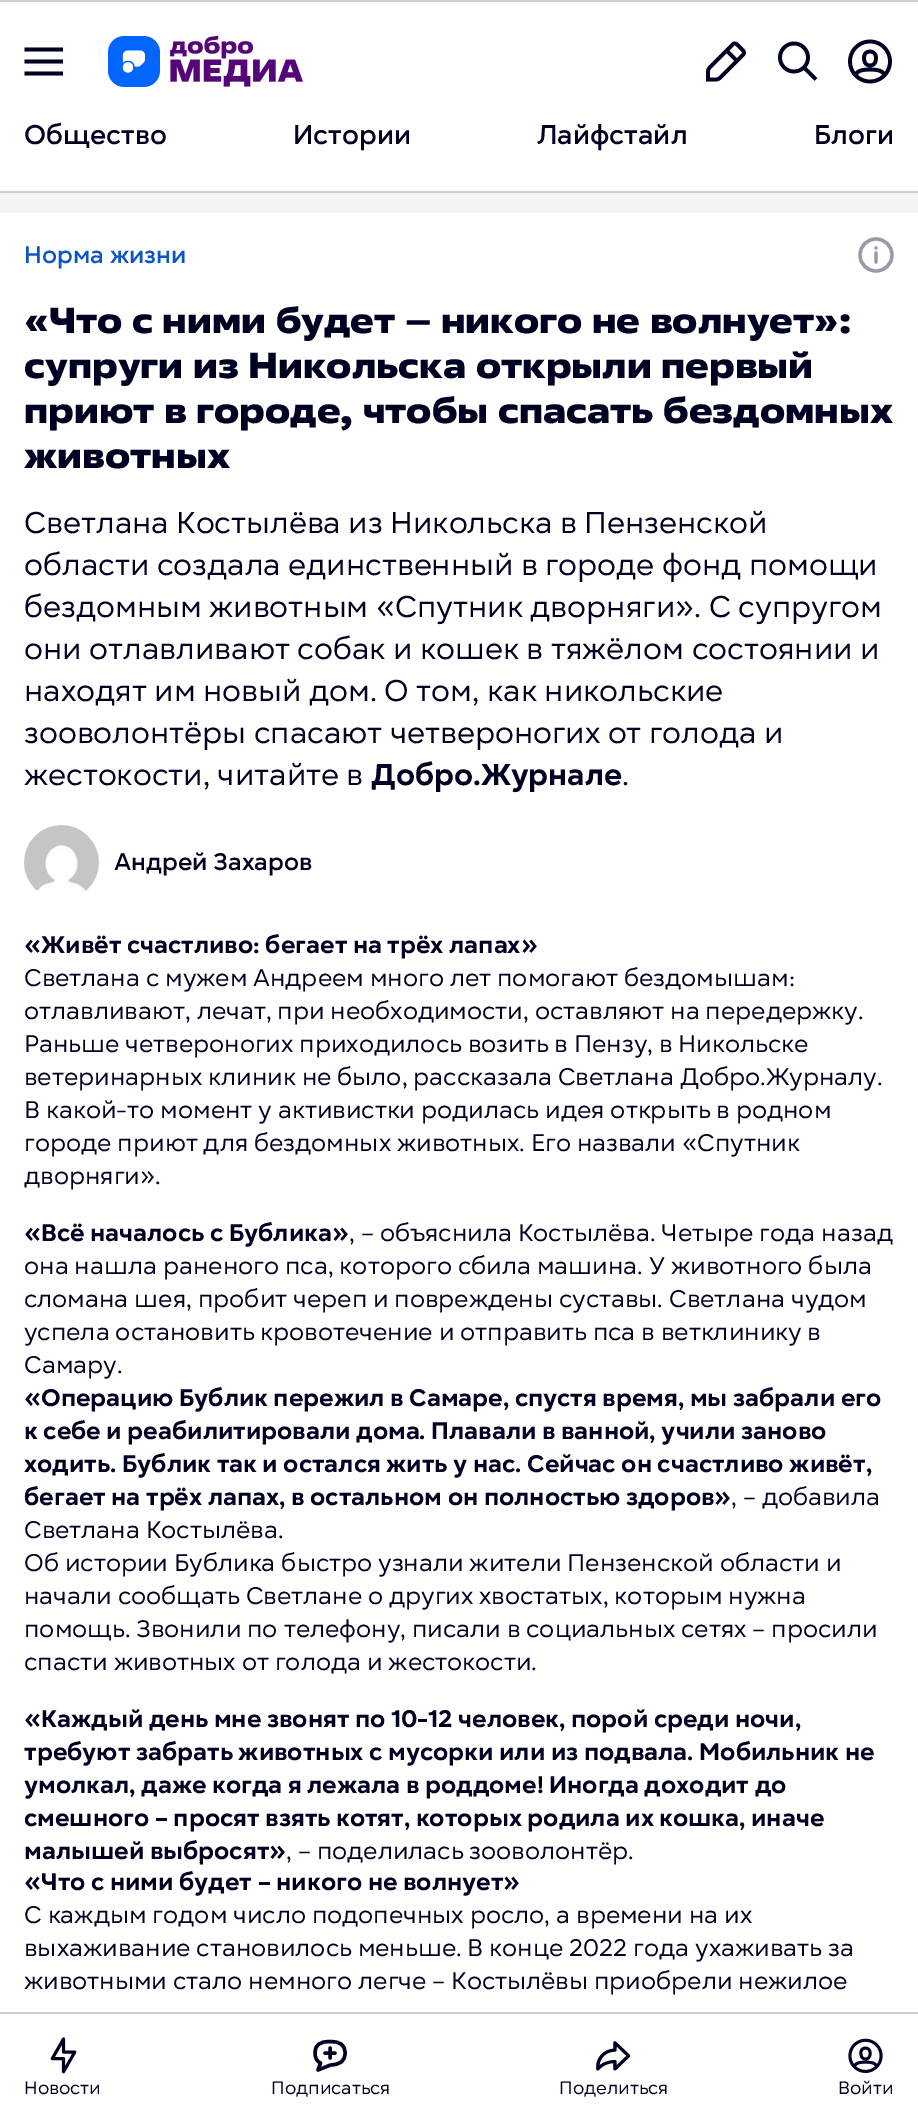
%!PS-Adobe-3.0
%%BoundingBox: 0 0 918 2122
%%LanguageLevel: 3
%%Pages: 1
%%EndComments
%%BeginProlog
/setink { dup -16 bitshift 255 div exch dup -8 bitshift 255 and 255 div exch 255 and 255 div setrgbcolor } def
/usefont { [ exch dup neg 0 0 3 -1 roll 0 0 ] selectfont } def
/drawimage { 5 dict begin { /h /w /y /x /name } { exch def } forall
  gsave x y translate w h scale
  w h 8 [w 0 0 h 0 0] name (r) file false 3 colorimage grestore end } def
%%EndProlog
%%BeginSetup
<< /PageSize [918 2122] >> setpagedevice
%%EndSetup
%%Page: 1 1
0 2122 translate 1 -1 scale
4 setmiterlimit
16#F4F4F4 setink
0 0 918 2122 rectfill
[
    [0 2 918 189 16#FFFFFF]
    [0 0 918 2 16#CCCCD3]
    [0 191 918 2 16#CCCCD3]
] { aload pop setink rectfill } forall
16#000022 setink
63 51.5 moveto 63 47.5 lineto 24.5 47.5 lineto 24.5 51.5 lineto closepath 63 59.5 moveto 63 63.5 lineto 24.5 63.5 lineto 24.5 59.5 lineto closepath 63 71.5 moveto 63 75.5 lineto 24.5 75.5 lineto 24.5 71.5 lineto closepath eofill
(img1.raw) 108 35 195 52 drawimage
(img2.raw) 706 41 40 41 drawimage
(img3.raw) 778 41 40 40 drawimage
(img4.raw) 848 39 44 45 drawimage
/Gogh-Medium 27 usefont
[
    [(Общество) 24 144]
    [(Истории) 293 144]
    [(Лайфстайл) 537 144]
    [(Блоги) 814 144]
] { aload pop moveto show } forall
16#FFFFFF setink
0 213 918 1799 rectfill
/Gogh-Medium 24 usefont
16#0B56C6 setink
24 263 moveto (Норма жизни) show
16#9999A7 setink
3.3 setlinewidth
1 setlinecap
1 setlinejoin
876 253 moveto 876 262 lineto 876 271 moveto 867 271 860 264 860 255 curveto 860 246 867 239 876 239 curveto 885 239 892 246 892 255 curveto 892 264 885 271 876 271 curveto closepath 876 248 moveto 876 248 lineto closepath stroke
/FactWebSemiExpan-ExtraBold 36 usefont
16#000022 setink
[
    [(«Что с ними будет – никого не волнует»:) 24 333]
    [(супруги из Никольска открыли первый) 24 378]
    [(приют в городе, чтобы спасать бездомных) 24 423]
    [(животных) 24 468]
] { aload pop moveto show } forall
/Gogh-Regular 30 usefont
[
    [(Светлана Костылёва из Никольска в Пензенской) 24 533]
    [(области создала единственный в городе фонд помощи) 24 575]
    [(бездомным животным «Спутник дворняги». С супругом) 24 617]
    [(они отлавливают собак и кошек в тяжёлом состоянии и) 24 659]
    [(находят им новый дом. О том, как никольские) 24 701]
    [(зооволонтёры спасают четвероногих от голода и) 24 743]
    [(жестокости, читайте в) 24 785]
] { aload pop moveto show } forall
/Gogh-Bold 30 usefont
371 785 moveto (Добро.Журнале) show
/Gogh-Regular 30 usefont
622 785 moveto (.) show
(img5.raw) 24 825 75 67 drawimage
/Gogh-Medium 24 usefont
114 870 moveto (Андрей Захаров) show
/Gogh-Bold 24 usefont
24 953 moveto («Живёт счастливо: бегает на трёх лапах») show
/Gogh-Regular 24 usefont
[
    [(Светлана с мужем Андреем много лет помогают бездомышам:) 24 986]
    [(отлавливают, лечат, при необходимости, оставляют на передержку.) 24 1019]
    [(Раньше четвероногих приходилось возить в Пензу, в Никольске) 24 1052]
    [(ветеринарных клиник не было, рассказала Светлана Добро.Журналу.) 24 1085]
    [(В какой-то момент у активистки родилась идея открыть в родном) 24 1118]
    [(городе приют для бездомных животных. Его назвали «Спутник) 24 1151]
    [(дворняги».) 24 1184]
] { aload pop moveto show } forall
/Gogh-Bold 24 usefont
24 1241 moveto («Всё началось с Бублика») show
/Gogh-Regular 24 usefont
[
    [(, – объяснила Костылёва. Четыре года назад) 349 1241]
    [(она нашла раненого пса, которого сбила машина. У животного была) 24 1274]
    [(сломана шея, пробит череп и повреждены суставы. Светлана чудом) 24 1307]
    [(успела остановить кровотечение и отправить пса в ветклинику в) 24 1340]
    [(Самару.) 24 1373]
] { aload pop moveto show } forall
/Gogh-Bold 24 usefont
[
    [(«Операцию Бублик пережил в Самаре, спустя время, мы забрали его) 24 1406]
    [(к себе и реабилитировали дома. Плавали в ванной, учили заново) 24 1439]
    [(ходить. Бублик так и остался жить у нас. Сейчас он счастливо живёт,) 24 1472]
    [(бегает на трёх лапах, в остальном он полностью здоров») 24 1505]
] { aload pop moveto show } forall
/Gogh-Regular 24 usefont
[
    [(, – добавила) 731 1505]
    [(Светлана Костылёва.) 24 1538]
    [(Об истории Бублика быстро узнали жители Пензенской области и) 24 1571]
    [(начали сообщать Светлане о других хвостатых, которым нужна) 24 1604]
    [(помощь. Звонили по телефону, писали в социальных сетях – просили) 24 1637]
    [(спасти животных от голода и жестокости.) 24 1670]
] { aload pop moveto show } forall
/Gogh-Bold 24 usefont
[
    [(«Каждый день мне звонят по 10-12 человек, порой среди ночи,) 24 1727]
    [(требуют забрать животных с мусорки или из подвала. Мобильник не) 24 1760]
    [(умолкал, даже когда я лежала в роддоме! Иногда доходит до) 24 1793]
    [(смешного – просят взять котят, которых родила их кошка, иначе) 24 1826]
    [(малышей выбросят») 24 1859]
] { aload pop moveto show } forall
/Gogh-Regular 24 usefont
286 1859 moveto (, – поделилась зооволонтёр.) show
/Gogh-Bold 24 usefont
24 1890 moveto («Что с ними будет – никого не волнует») show
/Gogh-Regular 24 usefont
[
    [(С каждым годом число подопечных росло, а времени на их) 24 1923]
    [(выхаживание становилось меньше. В конце 2022 года ухаживать за) 24 1956]
    [(животными стало немного легче – Костылёвы приобрели нежилое) 24 1989]
] { aload pop moveto show } forall
16#FFFFFF setink
0 2014 918 108 rectfill
16#CCCCD3 setink
0 2012 918 2 rectfill
(img6.raw) 50 2037 27 37 drawimage
/Gogh-Regular 18 usefont
16#000022 setink
24 2094 moveto (Новости) show
3.4 setlinewidth
330 2048 moveto 330 2058 lineto 335 2053 moveto 325 2053 lineto 330.5 2065 moveto 340 2064.5 345 2061.5 345 2053 curveto 345 2044.5 340 2041.5 330 2041.5 curveto 320 2041.5 315 2044.5 315 2053 curveto 315 2058 317 2061.5 320.5 2063 curveto 318 2070 lineto closepath stroke
271 2094 moveto (Подписаться) show
(img7.raw) 596 2041 35 30 drawimage
559 2094 moveto (Поделиться) show
(img8.raw) 848 2038 35 35 drawimage
838 2094 moveto (Войти) show
showpage
%%EOF
